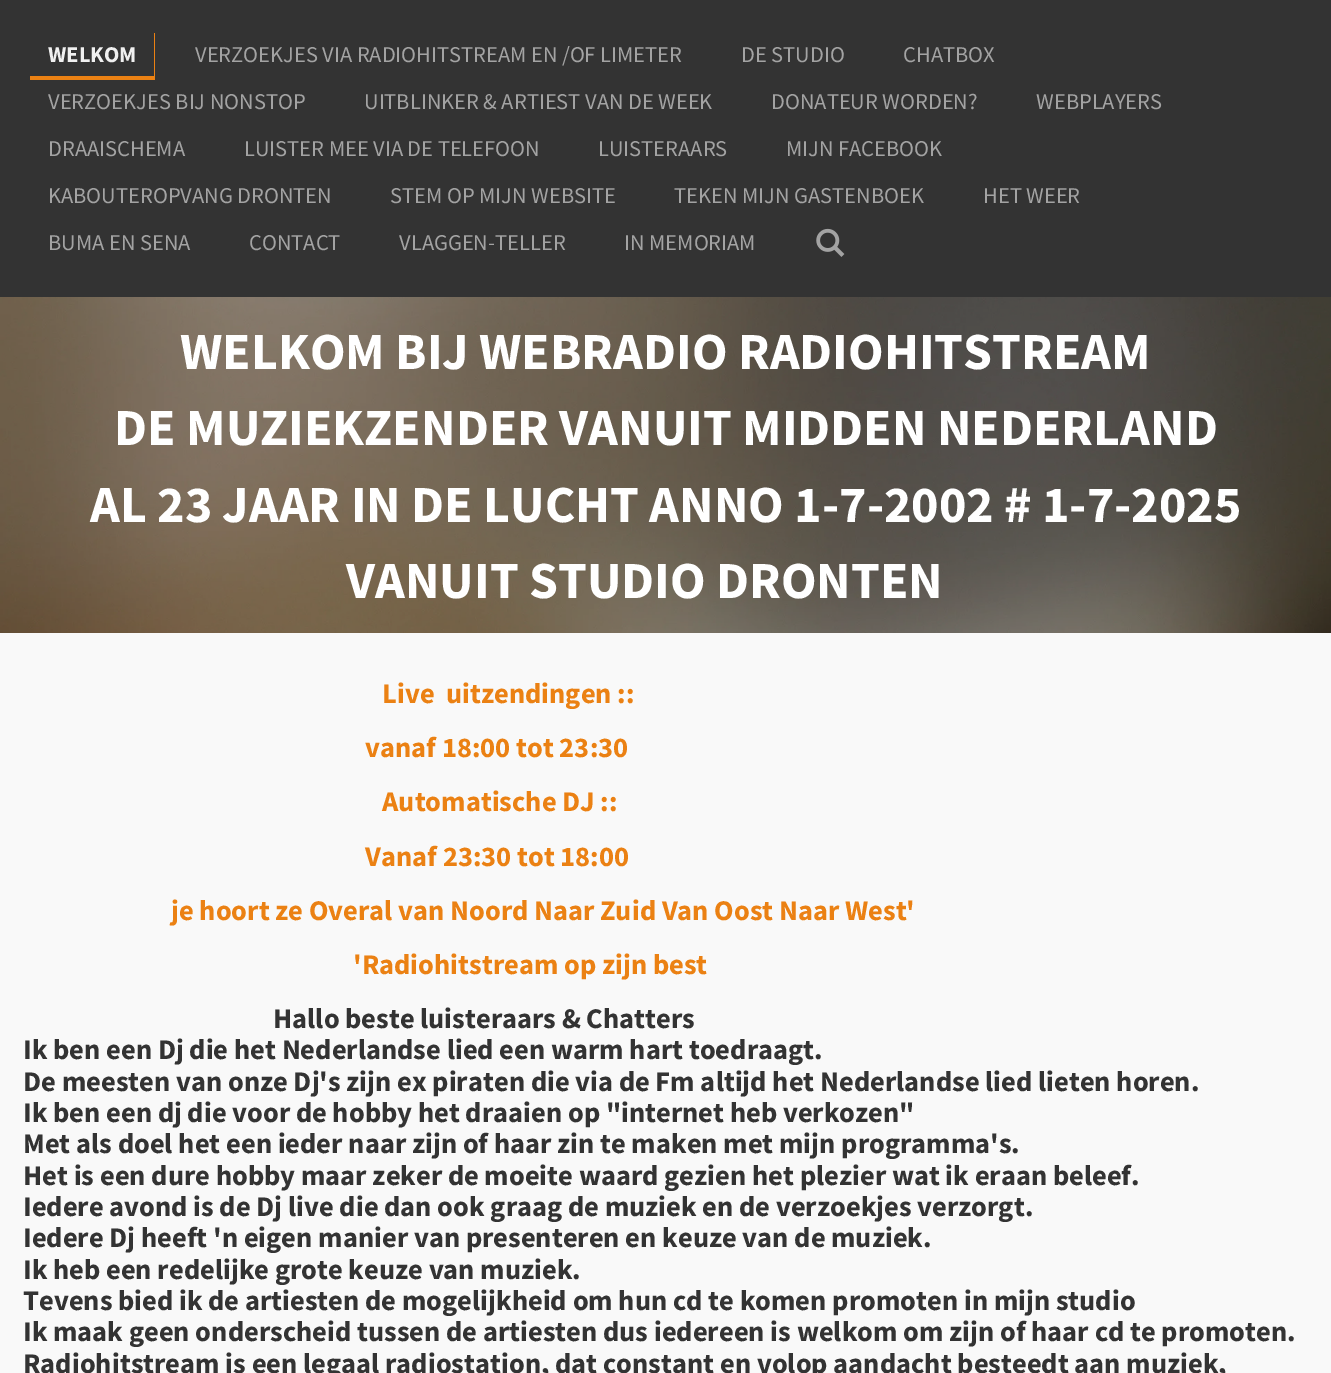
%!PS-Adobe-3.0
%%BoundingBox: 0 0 1331 1373
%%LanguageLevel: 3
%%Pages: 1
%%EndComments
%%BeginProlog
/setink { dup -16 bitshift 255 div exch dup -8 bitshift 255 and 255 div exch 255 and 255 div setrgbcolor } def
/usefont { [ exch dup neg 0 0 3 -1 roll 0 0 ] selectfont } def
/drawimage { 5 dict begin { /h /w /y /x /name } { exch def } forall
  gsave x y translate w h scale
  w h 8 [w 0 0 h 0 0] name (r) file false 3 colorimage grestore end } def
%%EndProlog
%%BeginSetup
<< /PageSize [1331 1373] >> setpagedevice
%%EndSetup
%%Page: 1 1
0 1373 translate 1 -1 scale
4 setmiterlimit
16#333333 setink
0 0 1331 1373 rectfill
16#EB8113 setink
30 76 moveto 30 80 lineto 155 80 lineto 155 33 lineto 154 33 lineto 154 76 lineto closepath fill
/SourceSansPro-Bold 22.5 usefont
16#F0F0F0 setink
48 62 moveto (WELKOM) show
/SourceSansPro-Regular 22.5 usefont
16#A3A3A3 setink
[
    [(VERZOEKJES VIA RADIOHITSTREAM EN /OF LIMETER) 195 62]
    [(DE STUDIO) 741 62]
    [(CHATBOX) 903 62]
    [(VERZOEKJES BIJ NONSTOP) 48 109]
    [(UITBLINKER & ARTIEST VAN DE WEEK) 364 109]
    [(DONATEUR WORDEN?) 771 109]
    [(WEBPLAYERS) 1036 109]
    [(DRAAISCHEMA) 48 156]
    [(LUISTER MEE VIA DE TELEFOON) 244 156]
    [(LUISTERAARS) 598 156]
    [(MIJN FACEBOOK) 786 156]
    [(KABOUTEROPVANG DRONTEN) 48 203]
    [(STEM OP MIJN WEBSITE) 390 203]
    [(TEKEN MIJN GASTENBOEK) 674 203]
    [(HET WEER) 983 203]
    [(BUMA EN SENA) 48 250]
    [(CONTACT) 249 250]
    [(VLAGGEN-TELLER) 399 250]
    [(IN MEMORIAM) 624 250]
] { aload pop moveto show } forall
(img1.raw) 816 228 29 29 drawimage
(img2.raw) 0 297 1331 336 drawimage
/SourceSansPro-Bold 52 usefont
16#FFFFFF setink
[
    [(WELKOM BIJ WEBRADIO RADIOHITSTREAM) 180 369]
    [(DE MUZIEKZENDER VANUIT MIDDEN NEDERLAND) 114 445]
    [(AL 23 JAAR IN DE LUCHT ANNO 1-7-2002 # 1-7-2025) 90 522]
    [(VANUIT STUDIO DRONTEN) 346 598]
] { aload pop moveto show } forall
16#F9F9F9 setink
0 633 1331 740 rectfill
/SourceSansPro-Bold 28.5 usefont
16#EB8113 setink
[
    [(Live  uitzendingen ::) 382 703]
    [(vanaf 18:00 tot 23:30) 365 757]
    [(Automatische DJ ::) 382 811]
    [(Vanaf 23:30 tot 18:00) 365 866]
    [(je hoort ze Overal van Noord Naar Zuid Van Oost Naar West') 171 920]
    [('Radiohitstream op zijn best) 353 974]
] { aload pop moveto show } forall
16#333333 setink
[
    [(Hallo beste luisteraars & Chatters) 273 1028]
    [(Ik ben een Dj die het Nederlandse lied een warm hart toedraagt.) 23 1059]
    [(De meesten van onze Dj's zijn ex piraten die via de Fm altijd het Nederlandse lied lieten horen.) 23 1091]
    [(Ik ben een dj die voor de hobby het draaien op "internet heb verkozen") 23 1122]
    [(Met als doel het een ieder naar zijn of haar zin te maken met mijn programma's.) 23 1153]
    [(Het is een dure hobby maar zeker de moeite waard gezien het plezier wat ik eraan beleef.) 23 1185]
    [(Iedere avond is de Dj live die dan ook graag de muziek en de verzoekjes verzorgt.) 23 1216]
    [(Iedere Dj heeft 'n eigen manier van presenteren en keuze van de muziek.) 23 1247]
    [(Ik heb een redelijke grote keuze van muziek.) 23 1279]
    [(Tevens bied ik de artiesten de mogelijkheid om hun cd te komen promoten in mijn studio) 23 1310]
    [(Ik maak geen onderscheid tussen de artiesten dus iedereen is welkom om zijn of haar cd te promoten.) 23 1341]
    [(Radiohitstream is een legaal radiostation, dat constant en volop aandacht besteedt aan muziek,) 23 1373]
] { aload pop moveto show } forall
showpage
%%EOF
